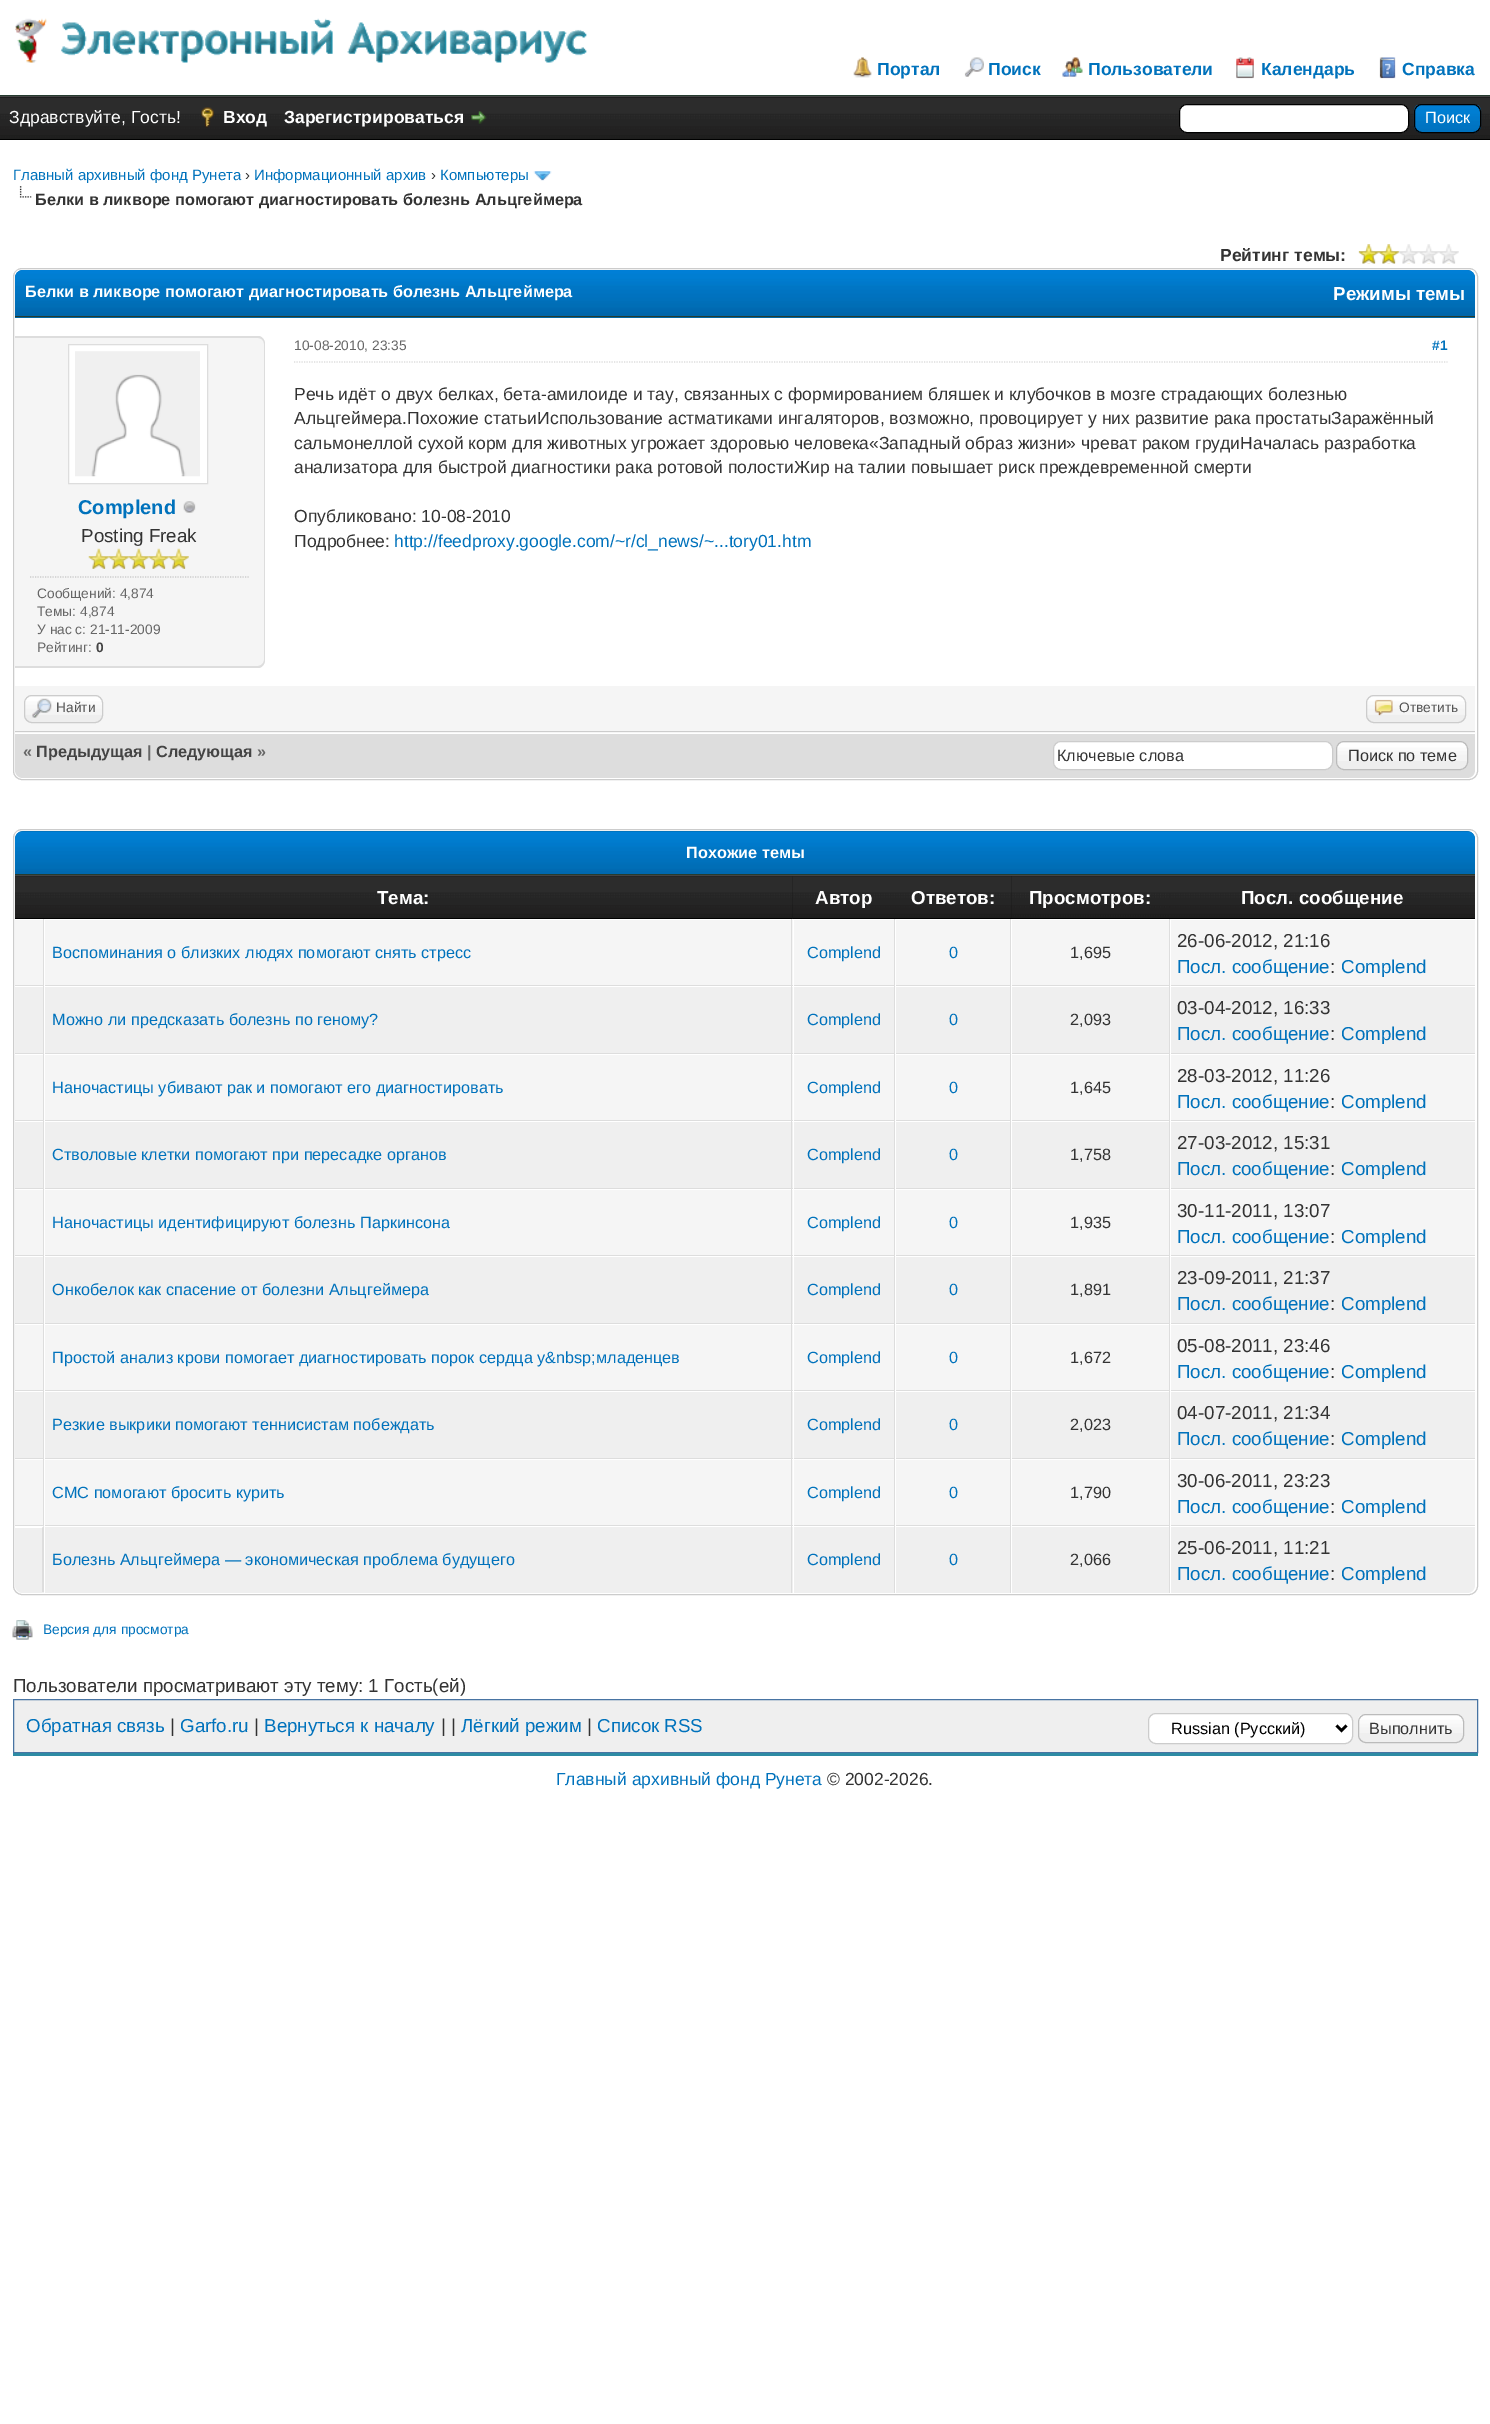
%!PS-Adobe-3.0
%%BoundingBox: 0 0 1490 2424
%%LanguageLevel: 3
%%Pages: 1
%%EndComments
%%BeginProlog
/setink { dup -16 bitshift 255 div exch dup -8 bitshift 255 and 255 div exch 255 and 255 div setrgbcolor } def
/usefont { [ exch dup neg 0 0 3 -1 roll 0 0 ] selectfont } def
/rrect { 5 dict begin { /r /h /w /y /x } { exch def } forall
  x r add y moveto x w add y 2 copy h add r arct x w add y h add x 1 index r arct
  x y h add x y r arct x y 2 copy exch w add exch r arct closepath end } def
/drawimage { 5 dict begin { /h /w /y /x /name } { exch def } forall
  gsave x y translate w h scale
  w h 8 [w 0 0 h 0 0] name (r) file false 3 colorimage grestore end } def
%%EndProlog
%%BeginSetup
<< /PageSize [1490 2424] >> setpagedevice
%%EndSetup
%%Page: 1 1
0 2424 translate 1 -1 scale
4 setmiterlimit
16#FFFFFF setink
0 0 1490 2424 rectfill
16#263C30 setink
0 95 1490 1 rectfill
(img1.raw) 15 18 572 45 drawimage
(img2.raw) 853 57 19 21 drawimage
/LiberationSans-Bold 17.5 usefont
16#0072BC setink
877 75 moveto (Портал) show
(img3.raw) 964 57 20 20 drawimage
988 75 moveto (Поиск) show
(img4.raw) 1062 57 21 20 drawimage
1088 75 moveto (Пользователи) show
(img5.raw) 1236 57 18 22 drawimage
1261 75 moveto (Календарь) show
(img6.raw) 1379 57 17 22 drawimage
1402 75 moveto (Справка) show
16#0F0F0F setink
0 97 1490 1 rectfill
(img7.raw) 0 97 1490 42 drawimage
16#444444 setink
0 96 1490 1 rectfill
16#000000 setink
0 139 1490 1 rectfill
/LiberationSans-Regular 17.5 usefont
16#FFFFFF setink
9 123 moveto (Здравствуйте, Гость!) show
(img8.raw) 201 107 13 21 drawimage
/LiberationSans-Bold 17.5 usefont
223 123 moveto (Вход) show
284 123 moveto (Зарегистрироваться) show
(img9.raw) 471 111 16 13 drawimage
1179.5 104.5 229 28 7.5 rrect gsave fill grestore
16#000000 setink
stroke
(img10.raw) 1413 105 69 28 drawimage
1414.5 104.5 66 28 7.5 rrect stroke
/LiberationSans-Regular 16.25 usefont
16#FFFFFF setink
1425 123 moveto (Поиск) show
/LiberationSans-Regular 15 usefont
16#0072BC setink
13 180 moveto (Главный архивный фонд Рунета) show
16#333333 setink
245 180 moveto (›) show
16#0072BC setink
254 180 moveto (Информационный архив) show
16#333333 setink
431 180 moveto (›) show
16#0072BC setink
440 180 moveto (Компьютеры) show
(img11.raw) 533 171 19 10 drawimage
(img12.raw) 19 186 13 12 drawimage
/LiberationSans-Bold 16.25 usefont
16#333333 setink
35 205 moveto (Белки в ликворе помогают диагностировать болезнь Альцгеймера) show
/LiberationSans-Bold 17.5 usefont
1220 261 moveto (Рейтинг темы:) show
(img13.raw) 1358 244 101 20 drawimage
(img14.raw) 1358 244 41 20 drawimage
16#CCCCCC setink
13.5 268.5 1464 511 8.5 rrect stroke
16#0066A2 setink
23 270 moveto 1467 270 lineto 1471.5 270 1475 273.5 1475 278 curveto 1475 318 lineto 15 318 lineto 15 278 lineto 15 273.5 18.5 270 23 270 curveto closepath fill
(img15.raw) 15 270 1460 46 drawimage
16#263C30 setink
15 316 1460 1 rectfill
/LiberationSans-Bold 16.25 usefont
16#FFFFFF setink
25 297 moveto (Белки в ликворе помогают диагностировать болезнь Альцгеймера) show
/LiberationSans-Bold 18.75 usefont
1333 300 moveto (Режимы темы) show
16#DDDDDD setink
1.2 setlinewidth
[1.25 1.25] 0 setdash
294 362 moveto 1447.5 362 lineto stroke
/LiberationSans-Regular 13.75 usefont
16#666666 setink
294 350 moveto (10-08-2010, 23:35) show
/LiberationSans-Bold 13.75 usefont
16#0072BC setink
1432 350 moveto (#1) show
/LiberationSans-Regular 17.5 usefont
16#333333 setink
[
    [(Речь идёт о двух белках, бета-амилоиде и тау, связанных с формированием бляшек и клубочков в мозге страдающих болезнью) 294 400]
    [(Альцгеймера.Похожие статьиИспользование астматиками ингаляторов, возможно, провоцирует у них развитие рака простатыЗаражённый) 294 424]
    [(сальмонеллой сухой корм для животных угрожает здоровью человека«Западный образ жизни» чреват раком грудиНачалась разработка) 294 449]
    [(анализатора для быстрой диагностики рака ротовой полостиЖир на талии повышает риск преждевременной смерти) 294 473]
    [(Опубликовано: 10-08-2010) 294 522]
    [(Подробнее:) 294 547]
] { aload pop moveto show } forall
16#0072BC setink
394 547 moveto (http://feedproxy.google.com/~r/cl_news/~...tory01.htm) show
16#F5F5F5 setink
15 336 moveto 257 336 lineto 261.5 336 265 339.5 265 344 curveto 265 660 lineto 265 664.5 261.5 668 257 668 curveto 15 668 lineto closepath fill
16#DDDDDD setink
15 336 moveto 258 336 lineto 262 336 265 340 265 344 curveto 265 660 lineto 265 664 262 668 258 668 curveto 15 668 lineto closepath 15 338 moveto 258 338 lineto 261 338 264 340 264 344 curveto 264 660 lineto 264 663 261 666 258 666 curveto 15 666 lineto closepath eofill
16#FFFFFF setink
68.5 344.5 moveto 207.5 344.5 lineto 207.5 483.5 lineto 68.5 483.5 lineto closepath gsave fill grestore
16#DDDDDD setink
1 setlinewidth
[] 0 setdash
stroke
(img16.raw) 75 351 125 126 drawimage
/LiberationSans-Bold 20 usefont
16#0072BC setink
78 514 moveto (Complend) show
(img17.raw) 183 501 13 12 drawimage
/LiberationSans-Regular 18.75 usefont
16#333333 setink
81 542 moveto (Posting Freak) show
(img18.raw) 88 548 21 21 drawimage
(img19.raw) 108 548 21 21 drawimage
(img19.raw) 128 548 21 21 drawimage
(img19.raw) 148 548 21 21 drawimage
(img20.raw) 168 548 21 21 drawimage
16#CCCCCC setink
1.2 setlinewidth
[1.25 1.25] 0 setdash
30 577 moveto 249 577 lineto stroke
/LiberationSans-Regular 13.75 usefont
16#666666 setink
[
    [(Сообщений: 4,874) 37 598]
    [(Темы: 4,874) 37 616]
    [(У нас с: 21-11-2009) 37 634]
    [(Рейтинг:) 37 652]
] { aload pop moveto show } forall
/LiberationSans-Bold 13.75 usefont
16#444444 setink
96 652 moveto (0) show
16#F5F5F5 setink
15 686 1460 47 rectfill
16#CCCCCC setink
15 731 1460 1 rectfill
16#EEEEEE setink
24 695 79 28 8 rrect fill
(img21.raw) 24 696 78 19 drawimage
16#CCCCCC setink
1 setlinewidth
[] 0 setdash
24.5 695.5 78 27 7.5 rrect stroke
(img22.raw) 32 698 20 20 drawimage
/LiberationSans-Regular 13.75 usefont
16#555555 setink
56 712 moveto (Найти) show
16#EEEEEE setink
1366 695 100 28 8 rrect fill
(img23.raw) 1366 696 100 19 drawimage
16#CCCCCC setink
1366.5 695.5 99 27 7.5 rrect stroke
(img24.raw) 1374 699 19 17 drawimage
16#555555 setink
1399 712 moveto (Ответить) show
16#DDDDDD setink
15 733 moveto 1475 733 lineto 1475 770 lineto 1475 774.5 1471.5 778 1467 778 curveto 23 778 lineto 18.5 778 15 774.5 15 770 curveto closepath fill
16#FFFFFF setink
15 733 1460 1 rectfill
/LiberationSans-Bold 16.25 usefont
16#666666 setink
23 757 moveto («) show
16#444444 setink
36 757 moveto (Предыдущая) show
16#666666 setink
147 757 moveto (|) show
16#444444 setink
156 757 moveto (Следующая) show
16#666666 setink
257 757 moveto (») show
16#FFFFFF setink
1053.5 741.5 279 28 7.5 rrect gsave fill grestore
16#CCCCCC setink
stroke
/LiberationSans-Regular 16.25 usefont
16#333333 setink
1057 761 moveto (Ключевые слова) show
16#EEEEEE setink
1336 741 132 29 8 rrect fill
(img25.raw) 1336 742 131 19 drawimage
16#BBBBBB setink
1336.5 741.5 131 28 7.5 rrect stroke
16#333333 setink
1348 761 moveto (Поиск по теме) show
16#CCCCCC setink
13.5 829.5 1464 765 8.5 rrect stroke
16#0066A2 setink
23 831 moveto 1467 831 lineto 1471.5 831 1475 834.5 1475 839 curveto 1475 875 lineto 15 875 lineto 15 839 lineto 15 834.5 18.5 831 23 831 curveto closepath fill
(img26.raw) 15 831 1460 43 drawimage
16#263C30 setink
15 874 1460 1 rectfill
/LiberationSans-Bold 16.25 usefont
16#FFFFFF setink
686 858 moveto (Похожие темы) show
16#0F0F0F setink
15 876 778 42 rectfill
(img27.raw) 15 876 778 42 drawimage
16#444444 setink
15 875 1460 1 rectfill
16#000000 setink
15 918 778 1 rectfill
/LiberationSans-Bold 18.75 usefont
16#FFFFFF setink
377 904 moveto (Тема:) show
(img28.raw) 792 876 103 43 drawimage
16#000000 setink
793 918 682 1 rectfill
16#FFFFFF setink
815 904 moveto (Автор) show
(img29.raw) 895 876 116 42 drawimage
911 904 moveto (Ответов:) show
16#0F0F0F setink
1011 876 159 42 rectfill
(img30.raw) 1011 876 159 42 drawimage
16#FFFFFF setink
1029 904 moveto (Просмотров:) show
(img31.raw) 1170 876 305 42 drawimage
1241 904 moveto (Посл. сообщение) show
[
    [15 920 28 65 16#F5F5F5]
    [43 919 1 607 16#DDDDDD]
    [15 985 29 1 16#DDDDDD]
    [45 920 748 65 16#F5F5F5]
    [791 919 1 67 16#DDDDDD]
    [44 985 749 1 16#DDDDDD]
    [44 985 1 1 16#FFFFFF]
] { aload pop setink rectfill } forall
/LiberationSans-Regular 16.25 usefont
16#0072BC setink
52 958 moveto (Воспоминания о близких людях помогают снять стресс) show
[
    [794 920 100 65 16#F5F5F5]
    [894 919 1 674 16#DDDDDD]
    [793 985 102 1 16#DDDDDD]
    [793 985 1 1 16#FFFFFF]
] { aload pop setink rectfill } forall
16#0072BC setink
807 958 moveto (Complend) show
[
    [896 920 114 65 16#F5F5F5]
    [1010 919 1 674 16#DDDDDD]
    [895 985 116 1 16#DDDDDD]
    [895 985 1 1 16#FFFFFF]
] { aload pop setink rectfill } forall
16#0072BC setink
949 958 moveto (0) show
[
    [1012 920 157 65 16#F5F5F5]
    [1169 919 1 674 16#DDDDDD]
    [1011 985 464 1 16#DDDDDD]
    [1011 985 1 1 16#FFFFFF]
] { aload pop setink rectfill } forall
16#333333 setink
1070 958 moveto (1,695) show
16#F5F5F5 setink
1171 920 304 65 rectfill
16#FFFFFF setink
1170 985 1 1 rectfill
/LiberationSans-Regular 18.75 usefont
16#333333 setink
1177 947 moveto (26-06-2012, 21:16) show
16#0072BC setink
1177 973 moveto (Посл. сообщение) show
16#333333 setink
1330 973 moveto (:) show
16#0072BC setink
1341 973 moveto (Complend) show
[
    [15 987 28 66 16#EFEFEF]
    [15 1053 29 1 16#DDDDDD]
    [45 987 748 66 16#EFEFEF]
    [791 986 1 68 16#DDDDDD]
    [44 1053 1431 1 16#DDDDDD]
    [44 1053 1 1 16#FFFFFF]
] { aload pop setink rectfill } forall
/LiberationSans-Regular 16.25 usefont
16#0072BC setink
52 1025 moveto (Можно ли предсказать болезнь по геному?) show
16#EFEFEF setink
794 987 100 66 rectfill
16#FFFFFF setink
793 1053 1 1 rectfill
16#0072BC setink
807 1025 moveto (Complend) show
16#EFEFEF setink
896 987 114 66 rectfill
16#FFFFFF setink
895 1053 1 1 rectfill
16#0072BC setink
949 1025 moveto (0) show
16#EFEFEF setink
1012 987 157 66 rectfill
16#FFFFFF setink
1011 1053 1 1 rectfill
16#333333 setink
1070 1025 moveto (2,093) show
16#EFEFEF setink
1171 987 304 66 rectfill
16#FFFFFF setink
1170 1053 1 1 rectfill
/LiberationSans-Regular 18.75 usefont
16#333333 setink
1177 1014 moveto (03-04-2012, 16:33) show
16#0072BC setink
1177 1040 moveto (Посл. сообщение) show
16#333333 setink
1330 1040 moveto (:) show
16#0072BC setink
1341 1040 moveto (Complend) show
[
    [15 1055 28 65 16#F5F5F5]
    [15 1120 29 1 16#DDDDDD]
    [45 1055 748 65 16#F5F5F5]
    [791 1054 1 67 16#DDDDDD]
    [44 1120 1431 1 16#DDDDDD]
    [44 1120 1 1 16#FFFFFF]
] { aload pop setink rectfill } forall
/LiberationSans-Regular 16.25 usefont
16#0072BC setink
52 1093 moveto (Наночастицы убивают рак и помогают его диагностировать) show
16#F5F5F5 setink
794 1055 100 65 rectfill
16#FFFFFF setink
793 1120 1 1 rectfill
16#0072BC setink
807 1093 moveto (Complend) show
16#F5F5F5 setink
896 1055 114 65 rectfill
16#FFFFFF setink
895 1120 1 1 rectfill
16#0072BC setink
949 1093 moveto (0) show
16#F5F5F5 setink
1012 1055 157 65 rectfill
16#FFFFFF setink
1011 1120 1 1 rectfill
16#333333 setink
1070 1093 moveto (1,645) show
16#F5F5F5 setink
1171 1055 304 65 rectfill
16#FFFFFF setink
1170 1120 1 1 rectfill
/LiberationSans-Regular 18.75 usefont
16#333333 setink
1177 1082 moveto (28-03-2012, 11:26) show
16#0072BC setink
1177 1108 moveto (Посл. сообщение) show
16#333333 setink
1330 1108 moveto (:) show
16#0072BC setink
1341 1108 moveto (Complend) show
[
    [15 1122 28 66 16#EFEFEF]
    [15 1188 29 1 16#DDDDDD]
    [45 1122 748 66 16#EFEFEF]
    [791 1121 1 68 16#DDDDDD]
    [44 1188 1431 1 16#DDDDDD]
    [44 1188 1 1 16#FFFFFF]
] { aload pop setink rectfill } forall
/LiberationSans-Regular 16.25 usefont
16#0072BC setink
52 1160 moveto (Стволовые клетки помогают при пересадке органов) show
16#EFEFEF setink
794 1122 100 66 rectfill
16#FFFFFF setink
793 1188 1 1 rectfill
16#0072BC setink
807 1160 moveto (Complend) show
16#EFEFEF setink
896 1122 114 66 rectfill
16#FFFFFF setink
895 1188 1 1 rectfill
16#0072BC setink
949 1160 moveto (0) show
16#EFEFEF setink
1012 1122 157 66 rectfill
16#FFFFFF setink
1011 1188 1 1 rectfill
16#333333 setink
1070 1160 moveto (1,758) show
16#EFEFEF setink
1171 1122 304 66 rectfill
16#FFFFFF setink
1170 1188 1 1 rectfill
/LiberationSans-Regular 18.75 usefont
16#333333 setink
1177 1149 moveto (27-03-2012, 15:31) show
16#0072BC setink
1177 1175 moveto (Посл. сообщение) show
16#333333 setink
1330 1175 moveto (:) show
16#0072BC setink
1341 1175 moveto (Complend) show
[
    [15 1190 28 65 16#F5F5F5]
    [15 1255 29 1 16#DDDDDD]
    [45 1190 748 65 16#F5F5F5]
    [791 1189 1 67 16#DDDDDD]
    [44 1255 1431 1 16#DDDDDD]
    [44 1255 1 1 16#FFFFFF]
] { aload pop setink rectfill } forall
/LiberationSans-Regular 16.25 usefont
16#0072BC setink
52 1228 moveto (Наночастицы идентифицируют болезнь Паркинсона) show
16#F5F5F5 setink
794 1190 100 65 rectfill
16#FFFFFF setink
793 1255 1 1 rectfill
16#0072BC setink
807 1228 moveto (Complend) show
16#F5F5F5 setink
896 1190 114 65 rectfill
16#FFFFFF setink
895 1255 1 1 rectfill
16#0072BC setink
949 1228 moveto (0) show
16#F5F5F5 setink
1012 1190 157 65 rectfill
16#FFFFFF setink
1011 1255 1 1 rectfill
16#333333 setink
1070 1228 moveto (1,935) show
16#F5F5F5 setink
1171 1190 304 65 rectfill
16#FFFFFF setink
1170 1255 1 1 rectfill
/LiberationSans-Regular 18.75 usefont
16#333333 setink
1177 1217 moveto (30-11-2011, 13:07) show
16#0072BC setink
1177 1243 moveto (Посл. сообщение) show
16#333333 setink
1330 1243 moveto (:) show
16#0072BC setink
1341 1243 moveto (Complend) show
[
    [15 1257 28 66 16#EFEFEF]
    [15 1323 29 1 16#DDDDDD]
    [45 1257 748 66 16#EFEFEF]
    [791 1256 1 68 16#DDDDDD]
    [44 1323 1431 1 16#DDDDDD]
    [44 1323 1 1 16#FFFFFF]
] { aload pop setink rectfill } forall
/LiberationSans-Regular 16.25 usefont
16#0072BC setink
52 1295 moveto (Онкобелок как спасение от болезни Альцгеймера) show
16#EFEFEF setink
794 1257 100 66 rectfill
16#FFFFFF setink
793 1323 1 1 rectfill
16#0072BC setink
807 1295 moveto (Complend) show
16#EFEFEF setink
896 1257 114 66 rectfill
16#FFFFFF setink
895 1323 1 1 rectfill
16#0072BC setink
949 1295 moveto (0) show
16#EFEFEF setink
1012 1257 157 66 rectfill
16#FFFFFF setink
1011 1323 1 1 rectfill
16#333333 setink
1070 1295 moveto (1,891) show
16#EFEFEF setink
1171 1257 304 66 rectfill
16#FFFFFF setink
1170 1323 1 1 rectfill
/LiberationSans-Regular 18.75 usefont
16#333333 setink
1177 1284 moveto (23-09-2011, 21:37) show
16#0072BC setink
1177 1310 moveto (Посл. сообщение) show
16#333333 setink
1330 1310 moveto (:) show
16#0072BC setink
1341 1310 moveto (Complend) show
[
    [15 1325 28 65 16#F5F5F5]
    [15 1390 29 1 16#DDDDDD]
    [45 1325 748 65 16#F5F5F5]
    [791 1324 1 67 16#DDDDDD]
    [44 1390 1431 1 16#DDDDDD]
    [44 1390 1 1 16#FFFFFF]
] { aload pop setink rectfill } forall
/LiberationSans-Regular 16.25 usefont
16#0072BC setink
52 1363 moveto (Простой анализ крови помогает диагностировать порок сердца у&nbsp;младенцев) show
16#F5F5F5 setink
794 1325 100 65 rectfill
16#FFFFFF setink
793 1390 1 1 rectfill
16#0072BC setink
807 1363 moveto (Complend) show
16#F5F5F5 setink
896 1325 114 65 rectfill
16#FFFFFF setink
895 1390 1 1 rectfill
16#0072BC setink
949 1363 moveto (0) show
16#F5F5F5 setink
1012 1325 157 65 rectfill
16#FFFFFF setink
1011 1390 1 1 rectfill
16#333333 setink
1070 1363 moveto (1,672) show
16#F5F5F5 setink
1171 1325 304 65 rectfill
16#FFFFFF setink
1170 1390 1 1 rectfill
/LiberationSans-Regular 18.75 usefont
16#333333 setink
1177 1352 moveto (05-08-2011, 23:46) show
16#0072BC setink
1177 1378 moveto (Посл. сообщение) show
16#333333 setink
1330 1378 moveto (:) show
16#0072BC setink
1341 1378 moveto (Complend) show
[
    [15 1392 28 66 16#EFEFEF]
    [15 1458 29 1 16#DDDDDD]
    [45 1392 748 66 16#EFEFEF]
    [791 1391 1 68 16#DDDDDD]
    [44 1458 1431 1 16#DDDDDD]
    [44 1458 1 1 16#FFFFFF]
] { aload pop setink rectfill } forall
/LiberationSans-Regular 16.25 usefont
16#0072BC setink
52 1430 moveto (Резкие выкрики помогают теннисистам побеждать) show
16#EFEFEF setink
794 1392 100 66 rectfill
16#FFFFFF setink
793 1458 1 1 rectfill
16#0072BC setink
807 1430 moveto (Complend) show
16#EFEFEF setink
896 1392 114 66 rectfill
16#FFFFFF setink
895 1458 1 1 rectfill
16#0072BC setink
949 1430 moveto (0) show
16#EFEFEF setink
1012 1392 157 66 rectfill
16#FFFFFF setink
1011 1458 1 1 rectfill
16#333333 setink
1070 1430 moveto (2,023) show
16#EFEFEF setink
1171 1392 304 66 rectfill
16#FFFFFF setink
1170 1458 1 1 rectfill
/LiberationSans-Regular 18.75 usefont
16#333333 setink
1177 1419 moveto (04-07-2011, 21:34) show
16#0072BC setink
1177 1445 moveto (Посл. сообщение) show
16#333333 setink
1330 1445 moveto (:) show
16#0072BC setink
1341 1445 moveto (Complend) show
[
    [15 1460 28 65 16#F5F5F5]
    [15 1525 29 1 16#DDDDDD]
    [45 1460 748 65 16#F5F5F5]
    [791 1459 1 67 16#DDDDDD]
    [44 1525 1431 1 16#DDDDDD]
    [44 1525 1 1 16#FFFFFF]
] { aload pop setink rectfill } forall
/LiberationSans-Regular 16.25 usefont
16#0072BC setink
52 1498 moveto (СМС помогают бросить курить) show
16#F5F5F5 setink
794 1460 100 65 rectfill
16#FFFFFF setink
793 1525 1 1 rectfill
16#0072BC setink
807 1498 moveto (Complend) show
16#F5F5F5 setink
896 1460 114 65 rectfill
16#FFFFFF setink
895 1525 1 1 rectfill
16#0072BC setink
949 1498 moveto (0) show
16#F5F5F5 setink
1012 1460 157 65 rectfill
16#FFFFFF setink
1011 1525 1 1 rectfill
16#333333 setink
1070 1498 moveto (1,790) show
16#F5F5F5 setink
1171 1460 304 65 rectfill
16#FFFFFF setink
1170 1525 1 1 rectfill
/LiberationSans-Regular 18.75 usefont
16#333333 setink
1177 1487 moveto (30-06-2011, 23:23) show
16#0072BC setink
1177 1513 moveto (Посл. сообщение) show
16#333333 setink
1330 1513 moveto (:) show
16#0072BC setink
1341 1513 moveto (Complend) show
16#EFEFEF setink
15 1526 moveto 44 1526 lineto 44 1593 lineto 23 1593 lineto 18.5 1593 15 1589.5 15 1585 curveto closepath fill
16#FFFFFF setink
15 1528 moveto 42 1528 lineto 44 1526 lineto 15 1526 lineto closepath fill
16#DDDDDD setink
44 1526 moveto 42 1528 lineto 42 1592 lineto 44 1592 lineto closepath fill
16#EFEFEF setink
45 1527 748 66 rectfill
16#DDDDDD setink
791 1526 1 67 rectfill
/LiberationSans-Regular 16.25 usefont
16#0072BC setink
52 1565 moveto (Болезнь Альцгеймера — экономическая проблема будущего) show
16#EFEFEF setink
794 1527 100 66 rectfill
16#0072BC setink
807 1565 moveto (Complend) show
16#EFEFEF setink
896 1527 114 66 rectfill
16#0072BC setink
949 1565 moveto (0) show
16#EFEFEF setink
1012 1527 157 66 rectfill
16#333333 setink
1070 1565 moveto (2,066) show
16#EFEFEF setink
1170 1526 moveto 1475 1526 lineto 1475 1585 lineto 1475 1589.5 1471.5 1593 1467 1593 curveto 1170 1593 lineto closepath fill
16#FFFFFF setink
1170 1526 305 1 rectfill
1170 1526 1 67 rectfill
/LiberationSans-Regular 18.75 usefont
16#333333 setink
1177 1554 moveto (25-06-2011, 11:21) show
16#0072BC setink
1177 1580 moveto (Посл. сообщение) show
16#333333 setink
1330 1580 moveto (:) show
16#0072BC setink
1341 1580 moveto (Complend) show
(img32.raw) 12 1620 21 20 drawimage
/LiberationSans-Regular 13.75 usefont
43 1634 moveto (Версия для просмотра) show
/LiberationSans-Regular 18.75 usefont
16#333333 setink
13 1692 moveto (Пользователи просматривают эту тему: 1 Гость\(ей\)) show
16#EFEFEF setink
13.5 1699.5 moveto 1477.5 1699.5 lineto 1477.5 1752.5 lineto 13.5 1752.5 lineto closepath gsave fill grestore
16#4874A3 setink
stroke
16#0072BC setink
26 1732 moveto (Обратная связь) show
16#333333 setink
170 1732 moveto (|) show
16#0072BC setink
180 1732 moveto (Garfo.ru) show
16#333333 setink
254 1732 moveto (|) show
16#0072BC setink
264 1732 moveto (Вернуться к началу) show
16#333333 setink
441 1732 moveto (| |) show
16#0072BC setink
461 1732 moveto (Лёгкий режим) show
16#333333 setink
587 1732 moveto (|) show
16#0072BC setink
597 1732 moveto (Список RSS) show
16#FFFFFF setink
1148.5 1713.5 204 30 7.5 rrect gsave fill grestore
16#CCCCCC setink
stroke
16#000000 setink
2.5 setlinewidth
1336.5 1725.5 moveto 1341.5 1730.5 lineto 1346.5 1725.5 lineto stroke
/LiberationSans-Regular 16.25 usefont
1171 1734 moveto (Russian \(Русский\)) show
(img33.raw) 1358 1715 106 18 drawimage
16#BBBBBB setink
1 setlinewidth
1358.5 1714.5 105 28 7.5 rrect stroke
16#333333 setink
1369 1734 moveto (Выполнить) show
16#2D8BA4 setink
13 1753 1465 3 rectfill
/LiberationSans-Regular 17.5 usefont
16#0072BC setink
556 1785 moveto (Главный архивный фонд Рунета) show
16#333333 setink
827 1785 moveto (© 2002-2026.) show
showpage
%%EOF
